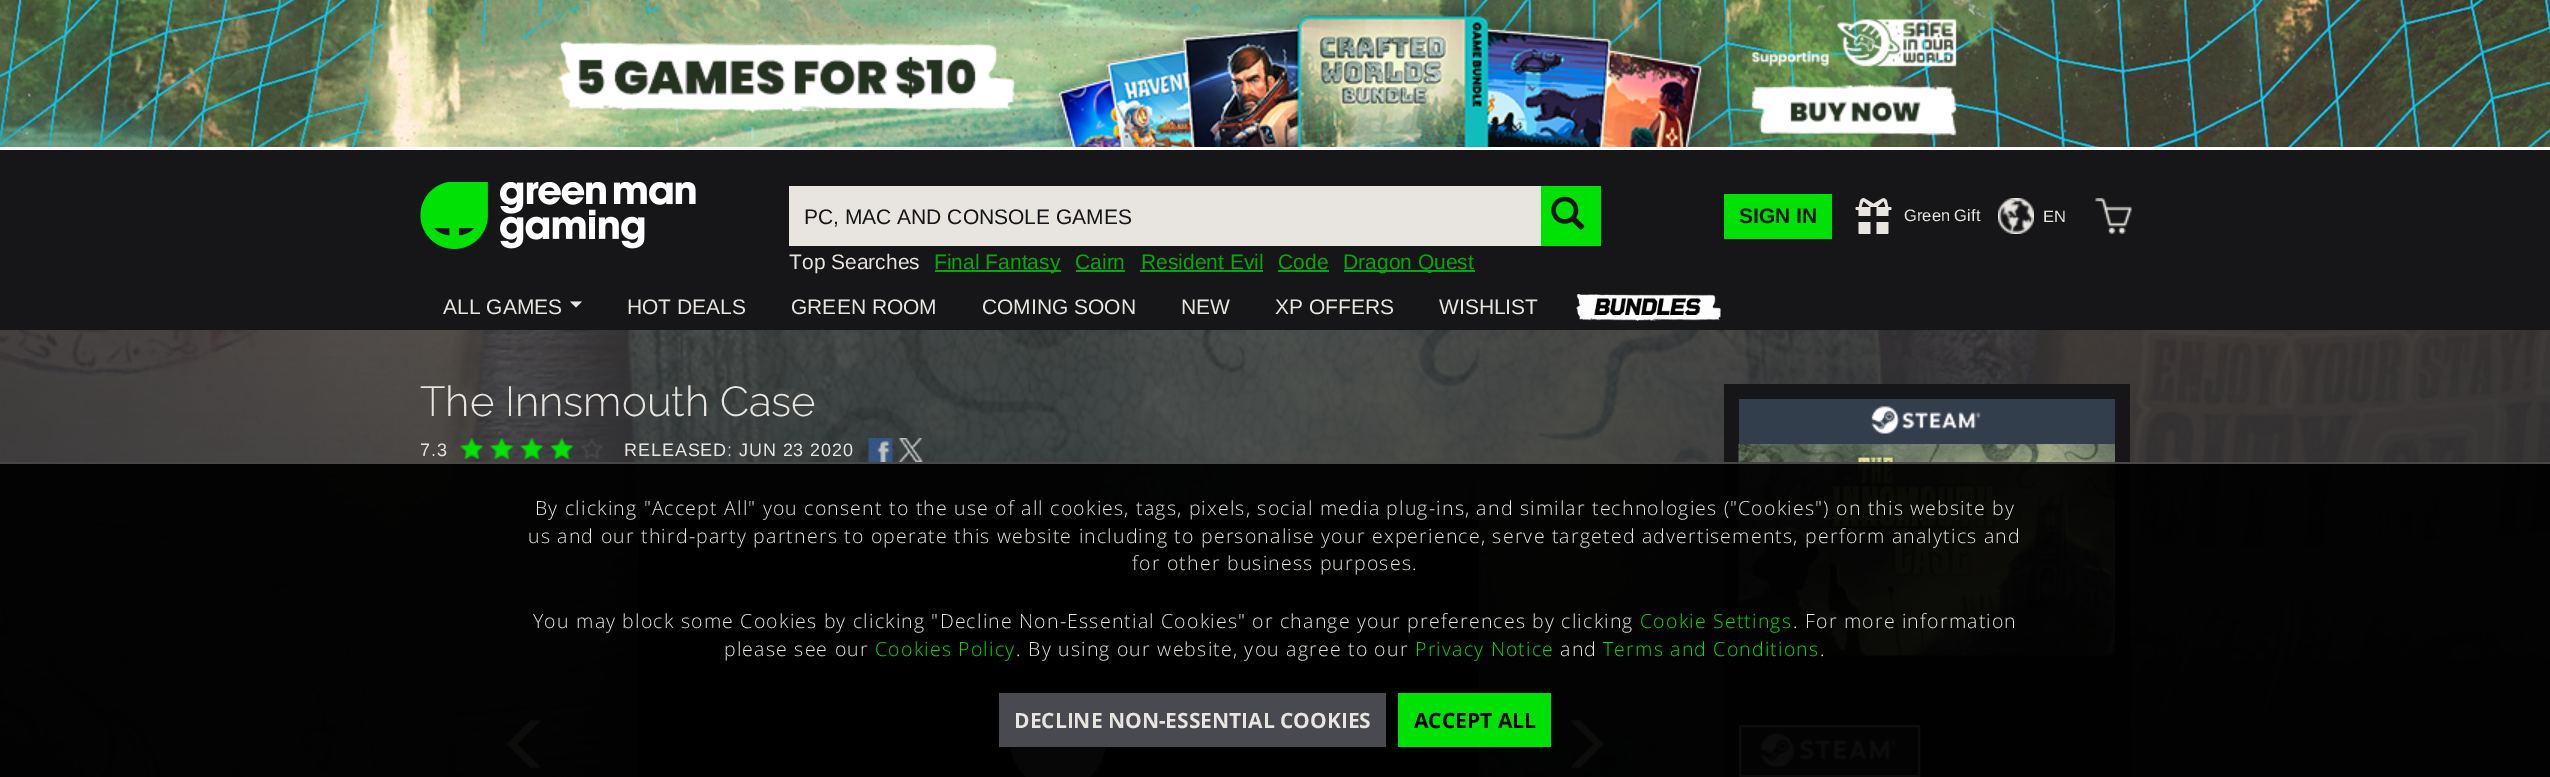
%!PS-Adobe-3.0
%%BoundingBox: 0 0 2550 777
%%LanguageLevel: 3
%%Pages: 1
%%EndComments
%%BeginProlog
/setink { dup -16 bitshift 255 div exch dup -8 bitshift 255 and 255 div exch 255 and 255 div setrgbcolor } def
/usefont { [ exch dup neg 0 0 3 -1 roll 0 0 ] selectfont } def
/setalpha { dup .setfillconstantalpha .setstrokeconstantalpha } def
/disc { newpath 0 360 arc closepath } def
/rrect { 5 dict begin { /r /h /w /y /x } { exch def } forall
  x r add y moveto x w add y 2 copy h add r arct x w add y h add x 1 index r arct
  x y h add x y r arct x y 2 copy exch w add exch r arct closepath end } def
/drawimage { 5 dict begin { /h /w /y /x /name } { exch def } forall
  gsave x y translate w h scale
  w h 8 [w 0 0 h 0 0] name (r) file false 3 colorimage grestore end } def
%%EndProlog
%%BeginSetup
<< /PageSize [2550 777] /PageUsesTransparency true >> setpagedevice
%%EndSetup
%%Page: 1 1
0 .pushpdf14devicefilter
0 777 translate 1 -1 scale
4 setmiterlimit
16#FFFFFF setink
0 0 2550 777 rectfill
(img1.raw) 0 0 2550 147 drawimage
(img2.raw) 559 3 1398 144 drawimage
16#161618 setink
0 150 2550 180 rectfill
(img3.raw) 420 182 276 67 drawimage
16#E8E5E0 setink
789 186 752 60 rectfill
/LiberationSans-Regular 21 usefont
16#161618 setink
804 224 moveto (PC, MAC AND CONSOLE GAMES) show
16#00E205 setink
1541 186 60 60 rectfill
(img4.raw) 1551 196 34 34 drawimage
16#E8E5E0 setink
789 269 moveto (Top Searches) show
16#06A90A setink
935 270 126 2 rectfill
934 269 moveto (Final Fantasy) show
1075 269 moveto (Cairn) show
1076 270 49 2 rectfill
1141 269 moveto (Resident Evil) show
1140 270 123 2 rectfill
1278 269 moveto (Code) show
1278 270 51 2 rectfill
1344 270 131 2 rectfill
1343 269 moveto (Dragon Quest) show
16#00E205 setink
1724 194 108 45 rectfill
/LiberationSans-Bold 21 usefont
16#161618 setink
1739 223 moveto (SIGN IN) show
(img5.raw) 1855 198 37 36 drawimage
/LiberationSans-Regular 16.5 usefont
16#E8E5E0 setink
1904 221 moveto (Green Gift) show
(img6.raw) 1998 198 36 36 drawimage
2043 222 moveto (EN) show
(img7.raw) 2095 198 37 36 drawimage
/LiberationSans-Regular 21 usefont
443 314 moveto (ALL GAMES) show
570 301.5 moveto 582 301.5 lineto 576 307.5 lineto closepath fill
[
    [(HOT DEALS) 627 314]
    [(GREEN ROOM) 791 314]
    [(COMING SOON) 982 314]
    [(NEW) 1181 314]
    [(XP OFFERS) 1275 314]
    [(WISHLIST) 1439 314]
] { aload pop moveto show } forall
(img8.raw) 1576 294 145 27 drawimage
(img9.raw) 0 330 2550 447 drawimage
/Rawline-Light 42 usefont
420 416 moveto (The Innsmouth Case) show
/LiberationSans-Regular 18 usefont
420 456 moveto 0.9 0 (7.3) ashow
(img10.raw) 460 438 23 21 drawimage
(img11.raw) 490 438 23 21 drawimage
(img12.raw) 520 438 23 21 drawimage
(img13.raw) 550 438 23 21 drawimage
(img14.raw) 580 438 23 21 drawimage
624 456 moveto 0.9 0 (RELEASED: JUN 23 2020) ashow
(img15.raw) 868 438 25 24 drawimage
(img16.raw) 898 438 25 24 drawimage
16#000000 setink
638 504 841 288 15 rrect fill
16#808080 setink
1058 741 48 disc fill
(img17.raw) 507 720 33 48 drawimage
(img18.raw) 1570 720 34 48 drawimage
16#161618 setink
1724 384 406 393 rectfill
16#333E4C setink
1739 399 376 45 rectfill
(img19.raw) 1871 406 110 28 drawimage
(img20.raw) 1738 444 377 212 drawimage
1740 726 moveto 1919 726 lineto 1919 776 lineto 1740 776 lineto closepath gsave fill grestore
16#FFFFFF setink
2 setlinewidth
stroke
(img21.raw) 1761 733 135 34 drawimage
0.95 setalpha
16#000000 setink
0 462 2550 315 rectfill
0.3 setalpha
16#E8E5E0 setink
0 462 2550 2 rectfill
/OpenSans-Light 19.5 usefont
1 setalpha
535 515 moveto 1.2 0 (By clicking "Accept All" you consent to the use of all cookies, tags, pixels, social media plug-ins, and similar technologies \("Cookies"\) on this website by) ashow
528 543 moveto 1.2 0 (us and our third-party partners to operate this website including to personalise your experience, serve targeted advertisements, perform analytics and) ashow
1132 570 moveto 1.2 0 (for other business purposes.) ashow
533 628 moveto 1.2 0 (You may block some Cookies by clicking "Decline Non-Essential Cookies" or change your preferences by clicking) ashow
16#00E205 setink
1640 628 moveto 1.2 0 (Cookie Settings) ashow
16#E8E5E0 setink
1793 628 moveto 1.2 0 (. For more information) ashow
724 656 moveto 1.2 0 (please see our) ashow
16#00E205 setink
875 656 moveto 1.2 0 (Cookies Policy) ashow
16#E8E5E0 setink
1016 656 moveto 1.2 0 (. By using our website, you agree to our) ashow
16#00E205 setink
1415 656 moveto 1.2 0 (Privacy Notice) ashow
16#E8E5E0 setink
1560 656 moveto 1.2 0 (and) ashow
16#00E205 setink
1603 656 moveto 1.2 0 (Terms and Conditions) ashow
16#E8E5E0 setink
1820 656 moveto 1.2 0 (.) ashow
16#494A4F setink
999 693 387 54 rectfill
/OpenSans-Bold 21 usefont
16#E8E5E0 setink
1014 728 moveto (DECLINE NON-ESSENTIAL COOKIES) show
16#00E205 setink
1398 693 153 54 rectfill
16#000000 setink
1414 728 moveto (ACCEPT ALL) show
.poppdf14devicefilter showpage
%%EOF
